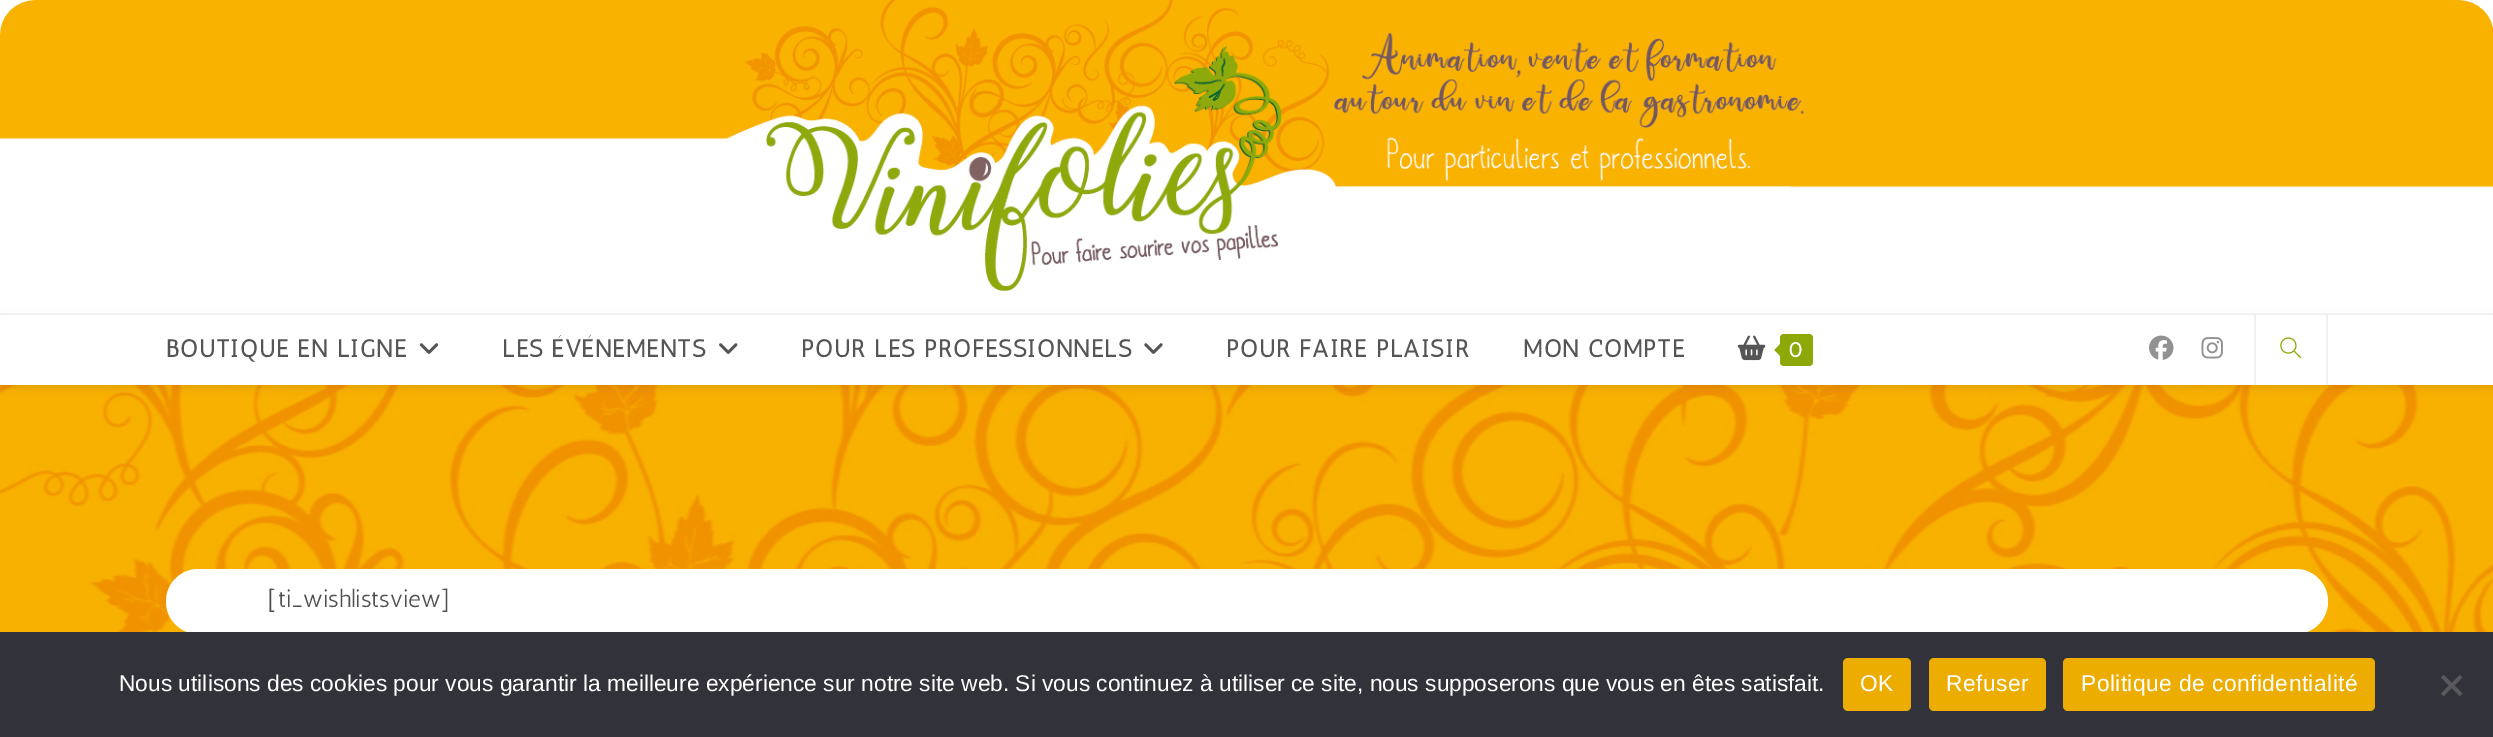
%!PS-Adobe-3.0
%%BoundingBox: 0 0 2493 737
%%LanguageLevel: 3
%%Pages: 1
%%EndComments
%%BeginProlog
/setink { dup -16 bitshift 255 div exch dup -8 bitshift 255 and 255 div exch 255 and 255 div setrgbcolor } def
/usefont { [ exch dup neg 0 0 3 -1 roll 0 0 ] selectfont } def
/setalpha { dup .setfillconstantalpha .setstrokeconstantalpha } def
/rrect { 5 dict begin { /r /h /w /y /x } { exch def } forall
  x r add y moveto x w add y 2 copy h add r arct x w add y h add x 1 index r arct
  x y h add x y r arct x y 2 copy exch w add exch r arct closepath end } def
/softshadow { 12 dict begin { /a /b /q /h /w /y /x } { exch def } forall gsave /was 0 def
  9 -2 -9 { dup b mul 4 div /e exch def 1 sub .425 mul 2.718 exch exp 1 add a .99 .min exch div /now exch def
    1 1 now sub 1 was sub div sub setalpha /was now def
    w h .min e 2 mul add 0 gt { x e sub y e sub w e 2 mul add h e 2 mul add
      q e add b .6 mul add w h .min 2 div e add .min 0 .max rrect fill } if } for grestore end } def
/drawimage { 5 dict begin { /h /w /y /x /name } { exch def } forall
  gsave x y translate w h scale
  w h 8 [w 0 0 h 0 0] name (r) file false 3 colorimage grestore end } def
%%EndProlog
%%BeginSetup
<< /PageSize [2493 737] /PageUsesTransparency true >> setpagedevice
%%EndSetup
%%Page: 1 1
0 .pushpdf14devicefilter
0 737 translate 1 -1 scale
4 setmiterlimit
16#FFFFFF setink
0 0 2493 737 rectfill
(img1.raw) 0 385 2493 247 drawimage
16#000000 setink
0 317 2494 70 0 4.5 0.1 softshadow
16#FFFFFF setink
2 311 2490 2 rectfill
16#F1F1F1 setink
0 313 2493 2 rectfill
(img2.raw) 0 0 2493 291 drawimage
16#FFFFFF setink
0 315 2493 70 rectfill
/Antic-Bold 24.5 usefont
16#555555 setink
166 357 moveto 1.05 0 (BOUTIQUE EN LIGNE) ashow
(img3.raw) 419 343 20 11 drawimage
502 357 moveto 1.05 0 (LES ÉVÉNEMENTS) ashow
(img4.raw) 719 343 19 11 drawimage
801 357 moveto 1.05 0 (POUR LES PROFESSIONNELS) ashow
(img5.raw) 1144 343 19 11 drawimage
1226 357 moveto 1.05 0 (POUR FAIRE PLAISIR) ashow
1523 357 moveto 1.05 0 (MON COMPTE) ashow
(img6.raw) 1737 335 29 26 drawimage
16#8DA909 setink
1780 334 33 32 4 rrect fill
1783 341 moveto 1783 359 lineto 1774.5 350 lineto closepath fill
/Antic-Bold 21 usefont
16#FFFFFF setink
1788 357 moveto 1.05 0 (0) ashow
(img7.raw) 2149 335 25 25 drawimage
(img8.raw) 2201 337 22 22 drawimage
16#F1F1F1 setink
2326 315 2 70 rectfill
2254 315 2 70 rectfill
(img9.raw) 2280 337 22 22 drawimage
16#FFFFFF setink
166 569 2162 65 32.5 rrect fill
/Antic-Regular 24.5 usefont
16#4F4F4F setink
267 607 moveto ([ti_wishlistsview]) show
16#32323A setink
0 632 2493 105 rectfill
/LiberationSans-Regular 22.75 usefont
16#FFFFFF setink
119 691 moveto (Nous utilisons des cookies pour vous garantir la meilleure expérience sur notre site web. Si vous continuez à utiliser ce site, nous supposerons que vous en êtes satisfait.) show
16#EDAD00 setink
1843 658 68 53 5 rrect fill
16#FFFFFF setink
1860 691 moveto 0.45 0 (OK) ashow
16#EDAD00 setink
1929 658 117 53 5 rrect fill
16#FFFFFF setink
1946 691 moveto 0.45 0 (Refuser) ashow
16#EDAD00 setink
2063 658 312 53 5 rrect fill
16#FFFFFF setink
2081 691 moveto 0.45 0 (Politique de confidentialité) ashow
16#59595D setink
2460 675 moveto 2462.5 677.5 lineto 2443.5 696 lineto 2441 693.5 lineto closepath fill
2441 677.5 moveto 2443.5 675 lineto 2462.5 693.5 lineto 2460 696 lineto closepath fill
.poppdf14devicefilter showpage
%%EOF
